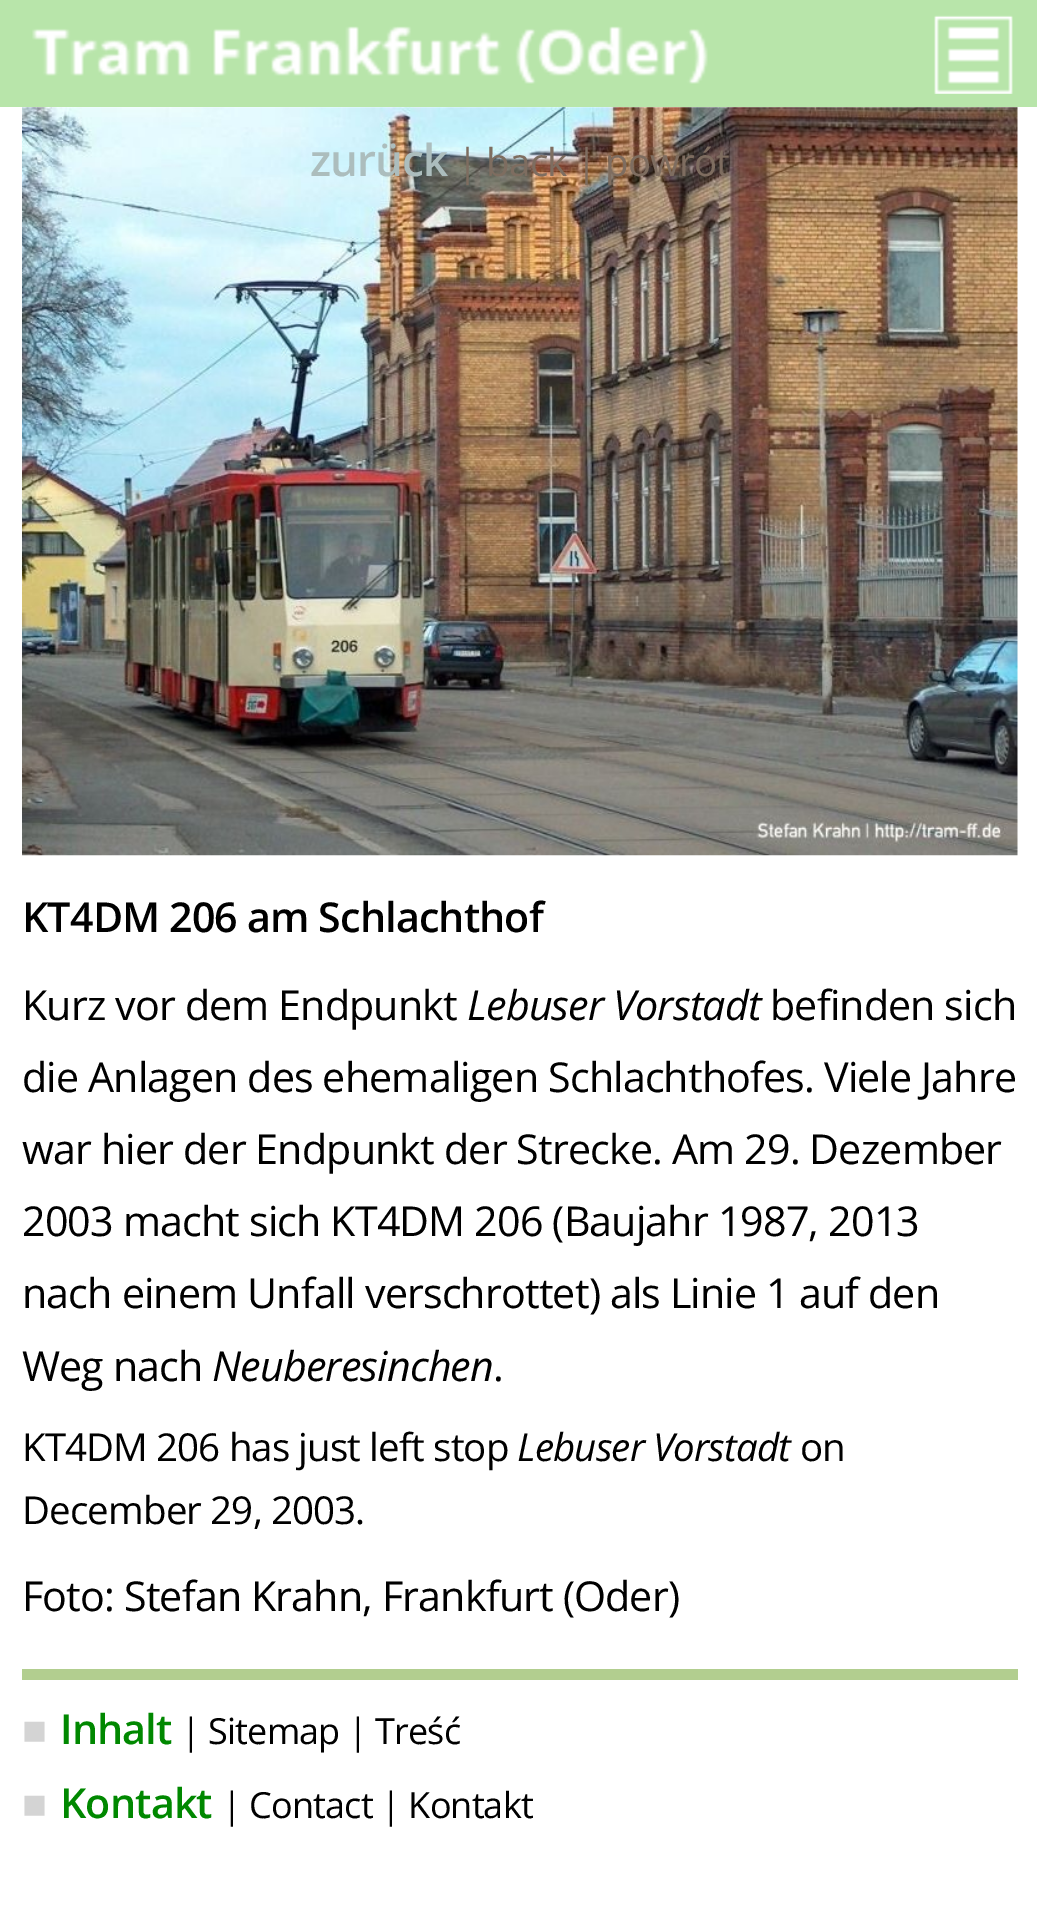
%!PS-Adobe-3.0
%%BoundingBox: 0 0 1037 1925
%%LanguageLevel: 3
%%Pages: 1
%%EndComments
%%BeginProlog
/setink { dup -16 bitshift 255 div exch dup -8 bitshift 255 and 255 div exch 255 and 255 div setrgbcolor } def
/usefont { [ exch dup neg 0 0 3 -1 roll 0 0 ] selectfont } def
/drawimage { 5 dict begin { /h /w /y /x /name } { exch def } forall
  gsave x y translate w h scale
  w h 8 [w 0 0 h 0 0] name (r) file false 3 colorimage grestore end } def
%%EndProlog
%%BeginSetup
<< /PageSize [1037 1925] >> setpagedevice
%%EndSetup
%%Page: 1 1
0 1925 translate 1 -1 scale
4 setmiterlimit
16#FFFFFF setink
0 0 1037 1925 rectfill
16#B8E5AA setink
0 0 1037 107 rectfill
(img1.raw) 32 26 676 58 drawimage
(img2.raw) 934 15 79 79 drawimage
(img3.raw) 22 107 996 749 drawimage
/OpenSans-SemiBold 44 usefont
16#ACBDBD setink
310 176 moveto -0.88 0 (zurück) ashow
/OpenSans-Regular 38.5 usefont
16#7E6D60 setink
457 176 moveto -0.88 0 (| back | powrót) ashow
/OpenSans-SemiBold 41.25 usefont
16#000000 setink
22 932 moveto -0.88 0 (KT4DM 206 am Schlachthof) ashow
/OpenSans-Regular 41.25 usefont
22 1020 moveto -0.88 0 (Kurz vor dem Endpunkt) ashow
/OpenSans-Italic 41.25 usefont
467 1020 moveto -0.88 0 (Lebuser Vorstadt) ashow
/OpenSans-Regular 41.25 usefont
770 1020 moveto -0.88 0 (befinden sich) ashow
22 1092 moveto -0.88 0 (die Anlagen des ehemaligen Schlachthofes. Viele Jahre) ashow
22 1164 moveto -0.88 0 (war hier der Endpunkt der Strecke. Am 29. Dezember) ashow
22 1236 moveto -0.88 0 (2003 macht sich KT4DM 206 \(Baujahr 1987, 2013) ashow
22 1308 moveto -0.88 0 (nach einem Unfall verschrottet\) als Linie 1 auf den) ashow
22 1381 moveto -0.88 0 (Weg nach) ashow
/OpenSans-Italic 41.25 usefont
212 1381 moveto -0.88 0 (Neuberesinchen) ashow
/OpenSans-Regular 41.25 usefont
493 1381 moveto -0.88 0 (.) ashow
/OpenSans-Regular 38.5 usefont
22 1461 moveto -0.88 0 (KT4DM 206 has just left stop) ashow
/OpenSans-Italic 38.5 usefont
517 1461 moveto -0.88 0 (Lebuser Vorstadt) ashow
/OpenSans-Regular 38.5 usefont
800 1461 moveto -0.88 0 (on) ashow
22 1524 moveto -0.88 0 (December 29, 2003.) ashow
/OpenSans-Regular 41.25 usefont
22 1611 moveto -0.88 0 (Foto: Stefan Krahn, Frankfurt \(Oder\)) ashow
16#B2CE8F setink
22 1669 996 11 rectfill
/LiberationSerif-Regular 41.25 usefont
16#D4D4D4 setink
22 1744 moveto -0.88 0 (■) ashow
/OpenSans-SemiBold 41.25 usefont
16#008800 setink
60 1744 moveto -0.88 0 (Inhalt) ashow
/OpenSans-Regular 36 usefont
16#000000 setink
181 1744 moveto -0.88 0 (| Sitemap | Treść) ashow
/LiberationSerif-Regular 41.25 usefont
16#D4D4D4 setink
22 1818 moveto -0.88 0 (■) ashow
/OpenSans-SemiBold 41.25 usefont
16#008800 setink
60 1818 moveto -0.88 0 (Kontakt) ashow
/OpenSans-Regular 36 usefont
16#000000 setink
222 1818 moveto -0.88 0 (| Contact | Kontakt) ashow
showpage
%%EOF
